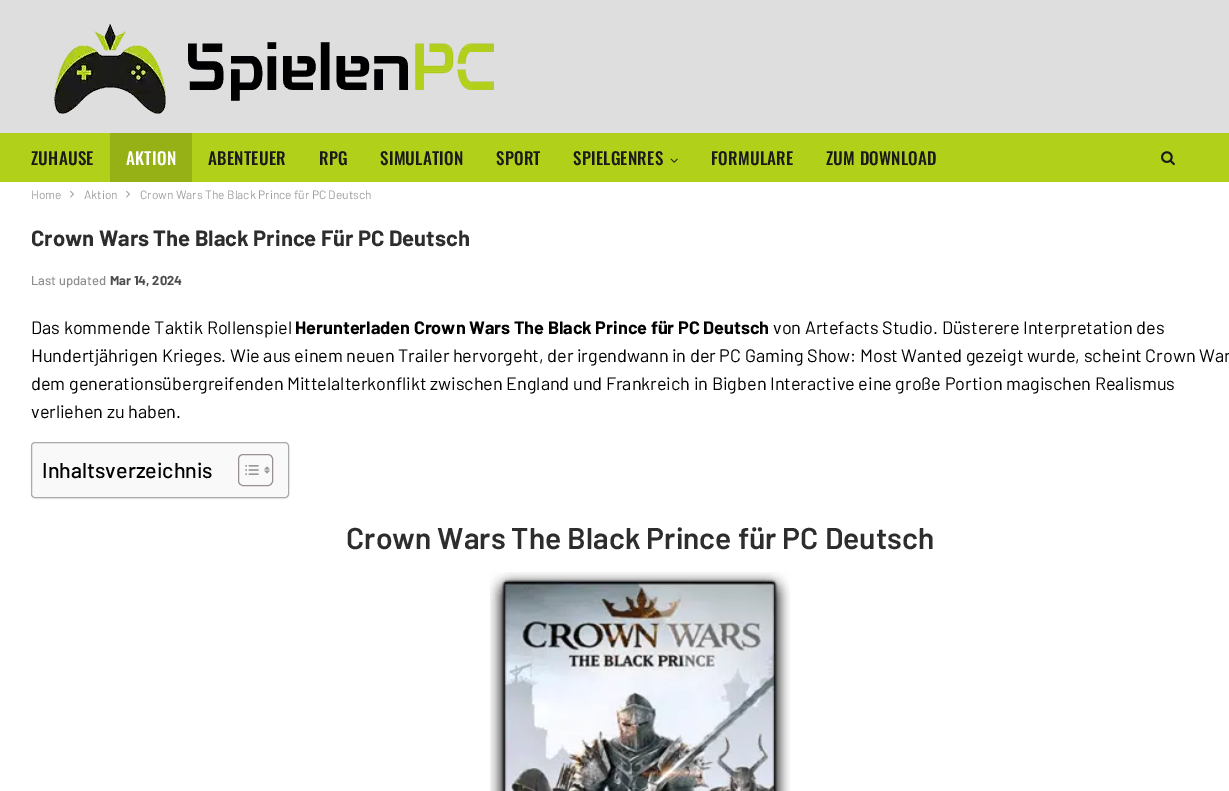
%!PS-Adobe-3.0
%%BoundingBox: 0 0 1229 791
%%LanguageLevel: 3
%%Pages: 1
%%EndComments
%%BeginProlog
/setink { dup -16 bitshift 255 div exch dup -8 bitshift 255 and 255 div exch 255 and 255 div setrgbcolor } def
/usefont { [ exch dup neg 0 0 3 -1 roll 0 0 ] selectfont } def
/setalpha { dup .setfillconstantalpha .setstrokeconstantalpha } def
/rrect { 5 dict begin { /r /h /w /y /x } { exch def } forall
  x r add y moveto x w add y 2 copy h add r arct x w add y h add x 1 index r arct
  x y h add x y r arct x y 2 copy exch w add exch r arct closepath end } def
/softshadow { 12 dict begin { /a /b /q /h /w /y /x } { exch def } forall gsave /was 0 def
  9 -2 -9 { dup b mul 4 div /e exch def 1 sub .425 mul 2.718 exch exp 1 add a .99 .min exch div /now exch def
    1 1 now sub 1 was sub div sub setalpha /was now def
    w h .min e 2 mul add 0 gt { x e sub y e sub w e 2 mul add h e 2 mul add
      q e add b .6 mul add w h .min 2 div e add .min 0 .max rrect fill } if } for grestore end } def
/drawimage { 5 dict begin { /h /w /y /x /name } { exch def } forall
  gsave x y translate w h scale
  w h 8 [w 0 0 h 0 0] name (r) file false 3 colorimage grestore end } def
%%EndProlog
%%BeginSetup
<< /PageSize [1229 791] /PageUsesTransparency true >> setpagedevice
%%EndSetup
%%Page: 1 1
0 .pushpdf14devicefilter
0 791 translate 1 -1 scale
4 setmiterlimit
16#FFFFFF setink
0 0 1229 791 rectfill
16#DEDEDE setink
0 0 1229 133 rectfill
(img1.raw) 54 23 440 91 drawimage
16#B0D01A setink
0 133 1229 49 rectfill
/Oswald-Medium 17 usefont
16#1C1A19 setink
31 165 moveto 0.25 0 (ZUHAUSE) ashow
16#96B116 setink
110 133 82 49 rectfill
16#FFFFFF setink
126 165 moveto 0.25 0 (AKTION) ashow
16#1C1A19 setink
208 165 moveto 0.25 0 (ABENTEUER) ashow
319 165 moveto 0.25 0 (RPG) ashow
380 165 moveto 0.25 0 (SIMULATION) ashow
496 165 moveto 0.25 0 (SPORT) ashow
573 165 moveto 0.25 0 (SPIELGENRES) ashow
(img2.raw) 670 158 8 5 drawimage
711 165 moveto 0.25 0 (FORMULARE) ashow
826 165 moveto 0.25 0 (ZUM DOWNLOAD) ashow
(img3.raw) 1161 151 14 15 drawimage
/Barlow-Regular 12 usefont
16#9E9E9E setink
31 199 moveto (Home) show
(img4.raw) 70 190 4 8 drawimage
84 199 moveto (Aktion) show
(img4.raw) 126 190 4 8 drawimage
140 199 moveto (Crown Wars The Black Prince für PC Deutsch) show
/Barlow-Bold 22 usefont
16#2D2D2D setink
31 246 moveto (Crown Wars The Black Prince Für PC Deutsch) show
/Barlow-Medium 13 usefont
16#8F8F8F setink
31 285 moveto (Last updated) show
/Barlow-Bold 13 usefont
16#4D4D4D setink
110 285 moveto (Mar 14, 2024) show
/Barlow-Regular 18 usefont
16#000000 setink
31 334 moveto (Das kommende Taktik Rollenspiel) show
/Barlow-Bold 18 usefont
295 334 moveto (Herunterladen Crown Wars The Black Prince für PC Deutsch) show
/Barlow-Regular 18 usefont
[
    [(von Artefacts Studio. Düsterere Interpretation des) 773 334]
    [(Hundertjährigen Krieges. Wie aus einem neuen Trailer hervorgeht, der irgendwann in der PC Gaming Show: Most Wanted gezeigt wurde, scheint Crown War) 31 362]
    [(dem generationsübergreifenden Mittelalterkonflikt zwischen England und Frankreich in Bigben Interactive eine große Portion magischen Realismus) 31 390]
    [(verliehen zu haben.) 31 418]
] { aload pop moveto show } forall
31 443 258 56 4 0.5 0.05 softshadow
16#F9F9F9 setink
31.5 442.5 257 55 3.5 rrect gsave fill grestore
16#AAAAAA setink
stroke
/Barlow-Medium 21.5 usefont
16#000000 setink
42 478 moveto (Inhaltsverzeichnis) show
16#999191 setink
238.5 454.5 34 31 4.5 rrect stroke
(img5.raw) 245 465 14 10 drawimage
(img6.raw) 264 466 6 8 drawimage
/Barlow-SemiBold 30 usefont
16#2D2D2D setink
346 549 moveto (Crown Wars The Black Prince für PC Deutsch) show
(img7.raw) 490 572 300 219 drawimage
.poppdf14devicefilter showpage
%%EOF
